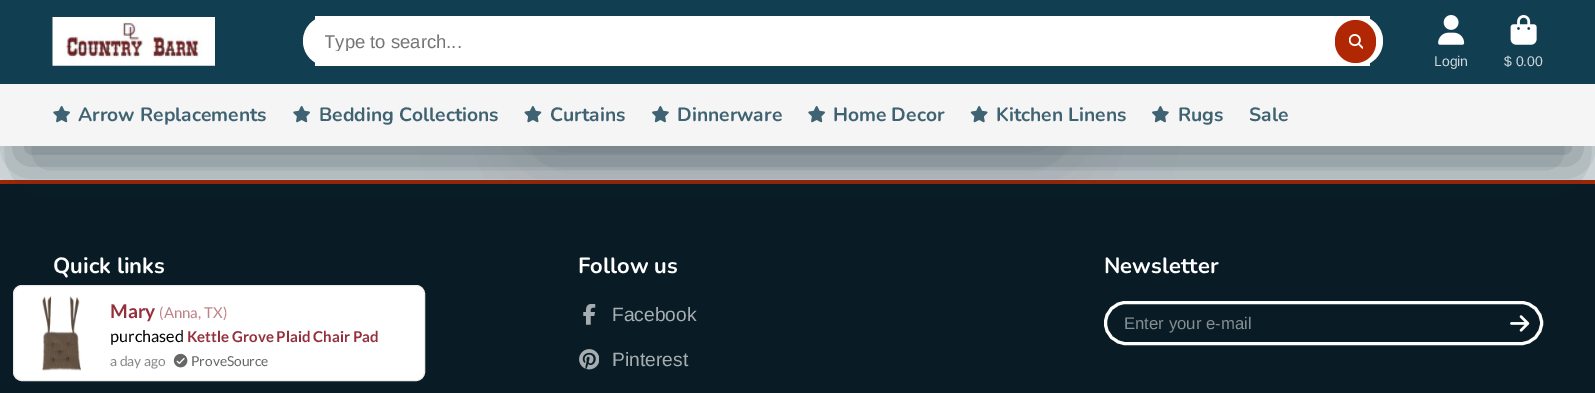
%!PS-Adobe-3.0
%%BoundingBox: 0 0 1595 393
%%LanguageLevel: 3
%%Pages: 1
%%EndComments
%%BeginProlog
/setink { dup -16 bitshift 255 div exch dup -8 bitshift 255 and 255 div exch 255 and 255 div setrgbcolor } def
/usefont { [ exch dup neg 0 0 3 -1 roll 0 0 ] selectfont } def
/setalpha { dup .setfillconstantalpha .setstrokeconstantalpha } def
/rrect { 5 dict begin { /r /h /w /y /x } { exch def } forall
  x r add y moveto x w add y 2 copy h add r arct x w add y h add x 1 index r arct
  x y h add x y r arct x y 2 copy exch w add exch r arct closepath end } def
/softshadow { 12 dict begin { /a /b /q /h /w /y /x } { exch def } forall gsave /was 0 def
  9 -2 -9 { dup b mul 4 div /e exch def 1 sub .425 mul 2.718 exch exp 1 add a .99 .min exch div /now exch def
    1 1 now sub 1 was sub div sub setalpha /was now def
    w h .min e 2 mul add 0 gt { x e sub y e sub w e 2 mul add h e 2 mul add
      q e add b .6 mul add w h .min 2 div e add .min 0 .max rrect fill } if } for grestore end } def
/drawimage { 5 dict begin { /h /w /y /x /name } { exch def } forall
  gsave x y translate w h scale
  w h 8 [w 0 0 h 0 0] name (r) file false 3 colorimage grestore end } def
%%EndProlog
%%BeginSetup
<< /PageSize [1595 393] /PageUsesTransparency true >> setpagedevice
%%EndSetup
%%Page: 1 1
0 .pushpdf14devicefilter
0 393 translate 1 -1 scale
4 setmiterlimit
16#EBEFF1 setink
0 0 1595 393 rectfill
16#091C25 setink
0 184 1595 209 rectfill
16#B12704 setink
0 180 1595 4 rectfill
16#0F242D setink
549 -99 497 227 0 33 0.3 softshadow
539 -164 519 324 0 54.5 0.1 softshadow
18 50 1560 111 0 24 0.4 softshadow
(img9.raw) 583 304 13 21 drawimage
16#FFFFFF setink
3 setlinewidth
1105.5 302.5 436 41 20.5 rrect stroke
(img11.raw) 1510 315 20 17 drawimage
16#0F242D setink
18 73 1560 111 0 54.5 0.3 softshadow
16#123E51 setink
0 0 1595 84 rectfill
(img1.raw) 52 17 163 49 drawimage
16#FFFFFF setink
315 16 1055 50 rectfill
303 16 1080 50 25 rrect fill
gsave
325 31 1035 20 rectclip
/LiberationSans-Regular 18.5 usefont
16#757575 setink
324 48 moveto (Type to search...) show
grestore
16#B12704 setink
1335 20 41 43 20.5 rrect fill
(img2.raw) 1349 34 14 15 drawimage
(img3.raw) 1438 15 27 30 drawimage
/LiberationSans-Regular 14 usefont
16#D0D8DC setink
1434 66 moveto (Login) show
(img4.raw) 1510 15 27 30 drawimage
1504 66 moveto ($ 0.00) show
16#F5F5F5 setink
0 84 1595 62 rectfill
(img5.raw) 53 106 17 17 drawimage
/Nunito-Bold 19.25 usefont
16#3F6372 setink
78 121 moveto (Arrow Replacements) show
(img5.raw) 293 106 17 17 drawimage
319 121 moveto (Bedding Collections) show
(img6.raw) 524 106 18 17 drawimage
550 121 moveto (Curtains) show
(img7.raw) 652 106 17 17 drawimage
677 121 moveto (Dinnerware) show
(img5.raw) 808 106 17 17 drawimage
833 121 moveto (Home Decor) show
(img8.raw) 970 106 18 17 drawimage
996 121 moveto (Kitchen Linens) show
(img7.raw) 1152 106 17 17 drawimage
1178 121 moveto (Rugs) show
1249 121 moveto (Sale) show
/Nunito-Bold 22 usefont
16#FFFFFF setink
53 273 moveto (Quick links) show
578 273 moveto (Follow us) show
/LiberationSans-Regular 19.25 usefont
16#A6ADB1 setink
612 321 moveto (Facebook) show
(img10.raw) 579 349 20 21 drawimage
612 366 moveto (Pinterest) show
/Nunito-Bold 22 usefont
16#FFFFFF setink
1104 273 moveto (Newsletter) show
/LiberationSans-Regular 16.75 usefont
16#848E92 setink
1124 329 moveto (Enter your e-mail) show
16#FFFFFF setink
13.5 285.5 411 95 8.5 rrect gsave fill grestore
16#ECECEC setink
1 setlinewidth
stroke
(img12.raw) 42 296 39 75 drawimage
/Lato-Bold 19 usefont
16#93303C setink
110 318 moveto (Mary) show
/Lato-Regular 15 usefont
16#BE838A setink
159 318 moveto (\(Anna, TX\)) show
/Lato-Regular 16.25 usefont
16#000000 setink
110 342 moveto (purchased) show
/Lato-Bold 15 usefont
16#93303C setink
187 342 moveto (Kettle Grove Plaid Chair Pad) show
/Lato-Regular 13.75 usefont
16#888888 setink
110 366 moveto (a day ago) show
(img13.raw) 173 353 15 15 drawimage
16#666666 setink
191 366 moveto (ProveSource) show
.poppdf14devicefilter showpage
%%EOF
